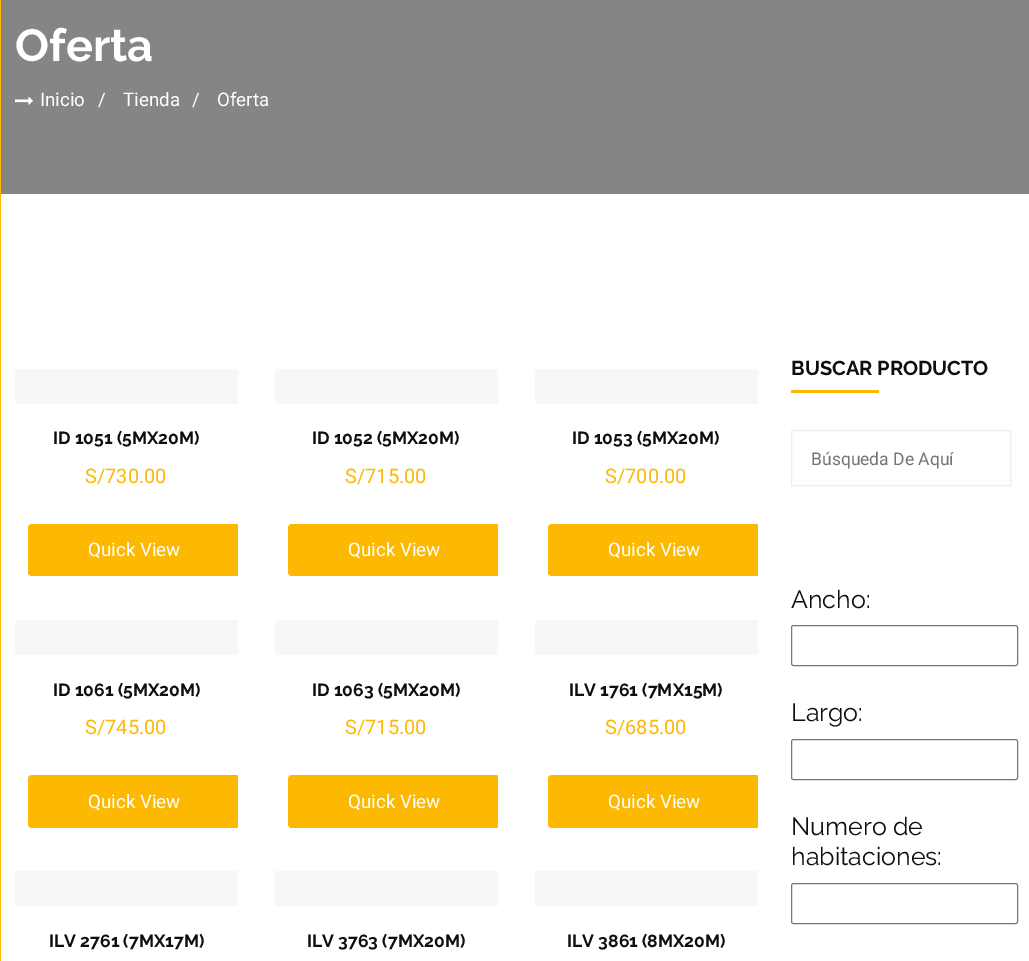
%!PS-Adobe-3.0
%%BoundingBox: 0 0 1029 961
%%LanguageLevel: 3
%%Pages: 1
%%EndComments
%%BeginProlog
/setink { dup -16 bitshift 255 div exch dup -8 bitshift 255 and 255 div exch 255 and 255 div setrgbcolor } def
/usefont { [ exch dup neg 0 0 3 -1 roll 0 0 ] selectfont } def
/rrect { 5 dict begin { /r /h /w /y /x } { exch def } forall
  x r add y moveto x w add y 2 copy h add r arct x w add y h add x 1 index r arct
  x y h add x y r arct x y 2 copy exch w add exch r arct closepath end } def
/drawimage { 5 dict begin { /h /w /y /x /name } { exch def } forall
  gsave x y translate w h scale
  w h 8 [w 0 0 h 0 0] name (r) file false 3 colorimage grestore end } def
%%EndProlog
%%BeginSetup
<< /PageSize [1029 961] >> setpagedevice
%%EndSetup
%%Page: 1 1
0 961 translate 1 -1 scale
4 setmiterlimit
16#FFFFFF setink
0 0 1029 961 rectfill
16#FDB801 setink
0 0 1 961 rectfill
16#858585 setink
1 0 1028 194 rectfill
/Raleway-Bold 45 usefont
16#FFFFFF setink
15 61 moveto (Oferta) show
(img1.raw) 15 96 18 9 drawimage
/Roboto-Regular 18.75 usefont
[
    [(Inicio) 40 106]
    [(/) 98 106]
    [(Tienda) 123 106]
    [(/) 192 106]
    [(Oferta) 217 106]
] { aload pop moveto show } forall
16#F7F7F7 setink
15 369 223 35 rectfill
/Raleway-Bold 17.5 usefont
16#0F0F0F setink
53 444 moveto (ID 1051 \(5MX20M\)) show
/Roboto-Regular 20 usefont
16#FDB801 setink
85 483 moveto (S/730.00) show
gsave
15 369 223 220 rectclip
28 524 212 52 4 rrect fill
grestore
/Roboto-Regular 18.75 usefont
16#FFFFFF setink
88 556 moveto (Quick View) show
16#F7F7F7 setink
275 369 223 35 rectfill
/Raleway-Bold 17.5 usefont
16#0F0F0F setink
312 444 moveto (ID 1052 \(5MX20M\)) show
/Roboto-Regular 20 usefont
16#FDB801 setink
345 483 moveto (S/715.00) show
gsave
275 369 223 220 rectclip
288 524 212 52 4 rrect fill
grestore
/Roboto-Regular 18.75 usefont
16#FFFFFF setink
348 556 moveto (Quick View) show
16#F7F7F7 setink
535 369 223 35 rectfill
/Raleway-Bold 17.5 usefont
16#0F0F0F setink
572 444 moveto (ID 1053 \(5MX20M\)) show
/Roboto-Regular 20 usefont
16#FDB801 setink
605 483 moveto (S/700.00) show
gsave
535 369 223 220 rectclip
548 524 212 52 4 rrect fill
grestore
/Roboto-Regular 18.75 usefont
16#FFFFFF setink
608 556 moveto (Quick View) show
16#F7F7F7 setink
15 620 223 35 rectfill
/Raleway-Bold 17.5 usefont
16#0F0F0F setink
53 696 moveto (ID 1061 \(5MX20M\)) show
/Roboto-Regular 20 usefont
16#FDB801 setink
85 734 moveto (S/745.00) show
gsave
15 620 223 220 rectclip
28 775 212 53 4 rrect fill
grestore
/Roboto-Regular 18.75 usefont
16#FFFFFF setink
88 808 moveto (Quick View) show
16#F7F7F7 setink
275 620 223 35 rectfill
/Raleway-Bold 17.5 usefont
16#0F0F0F setink
312 696 moveto (ID 1063 \(5MX20M\)) show
/Roboto-Regular 20 usefont
16#FDB801 setink
345 734 moveto (S/715.00) show
gsave
275 620 223 220 rectclip
288 775 212 53 4 rrect fill
grestore
/Roboto-Regular 18.75 usefont
16#FFFFFF setink
348 808 moveto (Quick View) show
16#F7F7F7 setink
535 620 223 35 rectfill
/Raleway-Bold 17.5 usefont
16#0F0F0F setink
569 696 moveto (ILV 1761 \(7MX15M\)) show
/Roboto-Regular 20 usefont
16#FDB801 setink
605 734 moveto (S/685.00) show
gsave
535 620 223 220 rectclip
548 775 212 53 4 rrect fill
grestore
/Roboto-Regular 18.75 usefont
16#FFFFFF setink
608 808 moveto (Quick View) show
16#F7F7F7 setink
15 871 223 35 rectfill
/Raleway-Bold 17.5 usefont
16#0F0F0F setink
49 947 moveto (ILV 2761 \(7MX17M\)) show
16#F7F7F7 setink
275 871 223 35 rectfill
16#0F0F0F setink
307 947 moveto (ILV 3763 \(7MX20M\)) show
16#F7F7F7 setink
535 871 223 35 rectfill
16#0F0F0F setink
567 947 moveto (ILV 3861 \(8MX20M\)) show
/Raleway-Bold 20 usefont
791 375 moveto (BUSCAR PRODUCTO) show
16#FDB801 setink
791 390 88 3 rectfill
16#EEEEEE setink
791.5 430.5 219 55 rectstroke
/Roboto-Regular 17.5 usefont
16#757575 setink
811 465 moveto (Búsqueda De Aquí) show
/Raleway-Regular 25 usefont
16#0F0F0F setink
791 608 moveto (Ancho:) show
16#767676 setink
791.5 625.5 226 40 2 rrect stroke
16#0F0F0F setink
791 721 moveto (Largo:) show
16#767676 setink
791.5 739.5 226 40 2 rrect stroke
16#0F0F0F setink
791 835 moveto (Numero de) show
791 865 moveto (habitaciones:) show
16#767676 setink
791.5 883.5 226 40 2 rrect stroke
showpage
%%EOF
